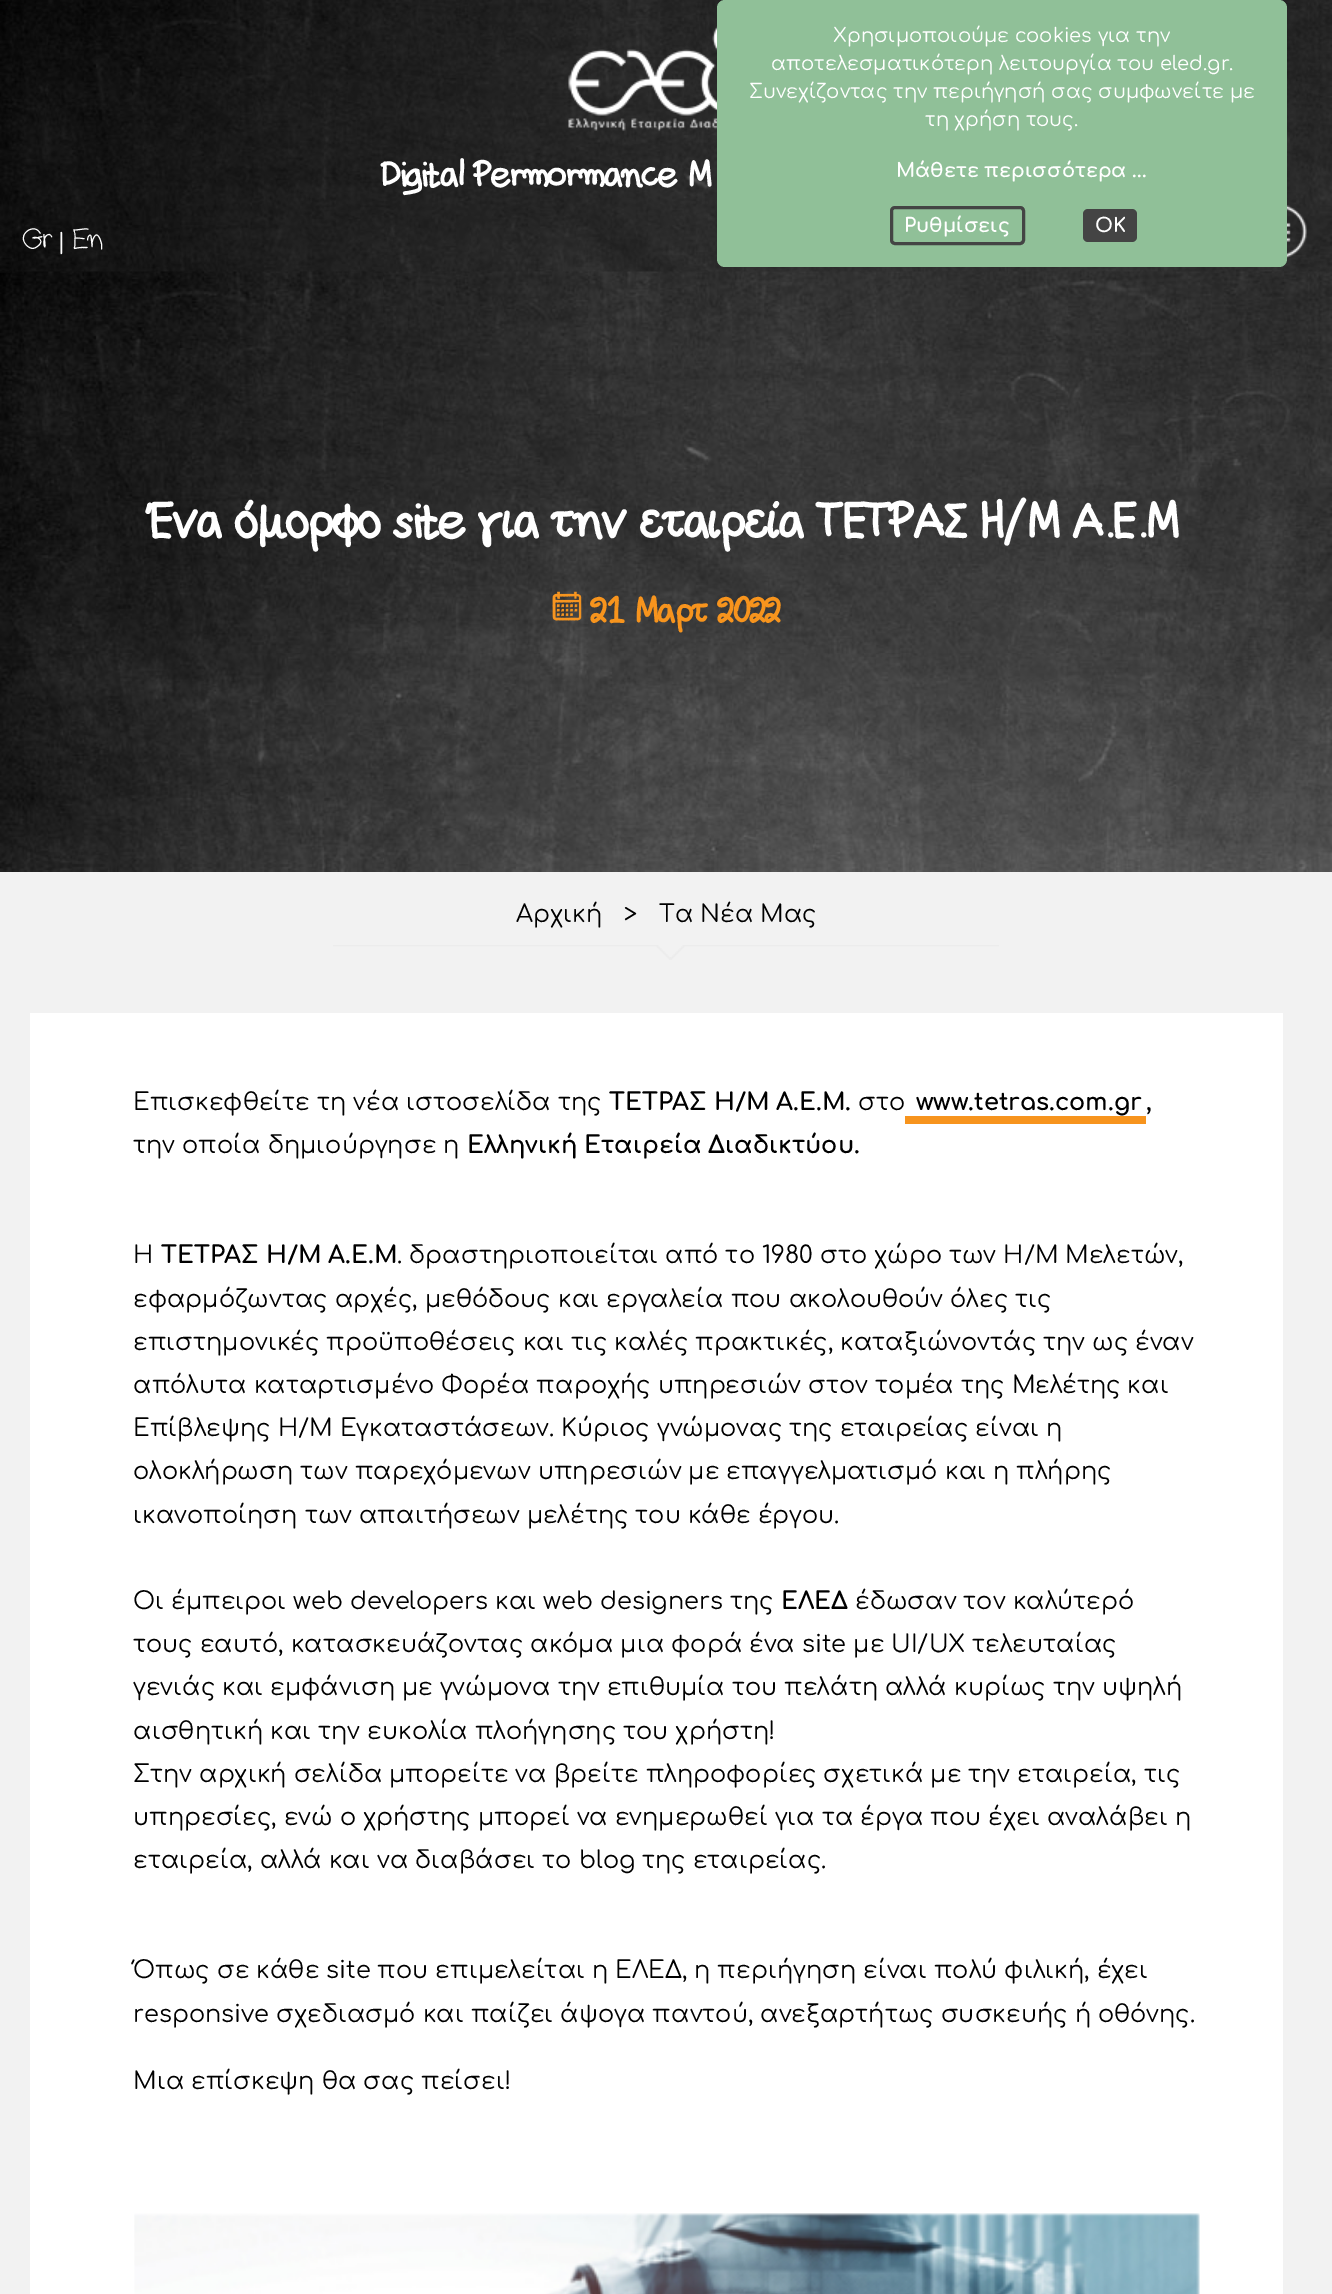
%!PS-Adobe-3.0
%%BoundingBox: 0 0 1332 2294
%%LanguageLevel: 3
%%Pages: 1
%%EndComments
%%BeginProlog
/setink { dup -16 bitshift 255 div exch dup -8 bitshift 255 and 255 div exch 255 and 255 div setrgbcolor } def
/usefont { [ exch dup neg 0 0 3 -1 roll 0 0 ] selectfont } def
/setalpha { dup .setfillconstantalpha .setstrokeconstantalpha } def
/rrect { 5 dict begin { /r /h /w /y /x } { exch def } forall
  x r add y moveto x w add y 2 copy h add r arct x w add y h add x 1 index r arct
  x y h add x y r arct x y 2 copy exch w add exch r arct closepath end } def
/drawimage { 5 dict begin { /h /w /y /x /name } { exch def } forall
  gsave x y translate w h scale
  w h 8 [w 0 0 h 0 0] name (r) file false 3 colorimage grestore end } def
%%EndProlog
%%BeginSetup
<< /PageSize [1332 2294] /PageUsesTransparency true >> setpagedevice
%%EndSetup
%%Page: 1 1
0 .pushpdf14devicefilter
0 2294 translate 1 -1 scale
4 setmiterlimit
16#FFFFFF setink
0 0 1332 2294 rectfill
(img1.raw) 0 0 1332 272 drawimage
0.2 setalpha
16#000000 setink
0 0 1332 272 rectfill
1 setalpha
(img2.raw) 568 26 149 105 drawimage
/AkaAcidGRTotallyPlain-Bold 33.5 usefont
16#FFFFFF setink
381 186 moveto (Digital Permormance M) show
/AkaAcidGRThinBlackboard-Bold 28 usefont
23 249 moveto (Gr) show
/Comfortaa-Regular 22 usefont
57 249 moveto (|) show
/AkaAcidGRThinBlackboard-Bold 28 usefont
72 249 moveto (En) show
(img3.raw) 1287 205 20 54 drawimage
16#90C098 setink
717 0 570 267 8 rrect fill
/Comfortaa-Regular 19.5 usefont
16#FFFFFF setink
[
    [(Χρησιμοποιούμε cookies για την) 833 42]
    [(αποτελεσματικότερη λειτουργία του eled.gr.) 771 70]
    [(Συνεχίζοντας την περιήγησή σας συμφωνείτε με) 749 98]
    [(τη χρήση τους.) 925 126]
] { aload pop moveto show } forall
/Comfortaa-Bold 19.5 usefont
896 177 moveto (Μάθετε περισσότερα ...) show
16#444444 setink
3 setlinewidth
891.5 207.5 132 36 3.5 rrect stroke
16#FFFFFF setink
904 232 moveto (Ρυθμίσεις) show
16#444444 setink
1083 209 54 33 5 rrect fill
16#FFFFFF setink
1095 232 moveto (OK) show
(img4.raw) 0 271 1332 601 drawimage
/AkaAcidGRTotallyPlain-Bold 46.6 usefont
151 537 moveto (Ένα όμορφο site για την εταιρεία ΤΕΤΡΑΣ Η/Μ Α.Ε.Μ) show
(img5.raw) 552 591 30 30 drawimage
/AkaAcidGRTotallyPlain-Bold 33.25 usefont
16#F7941D setink
592 622 moveto (21 Μαρτ 2022) show
16#F2F2F2 setink
0 872 1332 1422 rectfill
/Comfortaa-Regular 24 usefont
16#000000 setink
[
    [(Αρχική) 516 922]
    [(>) 624 922]
    [(Τα Νέα Μας) 659 922]
] { aload pop moveto show } forall
(img6.raw) 333 945 666 15 drawimage
16#FFFFFF setink
30 1013 1253 1281 rectfill
16#000000 setink
133 1110 moveto (Επισκεφθείτε τη νέα ιστοσελίδα της) show
/Comfortaa-Bold 24 usefont
609 1110 moveto (ΤΕΤΡΑΣ Η/Μ Α.Ε.Μ.) show
/Comfortaa-Regular 24 usefont
858 1110 moveto (στο) show
/Comfortaa-Bold 24 usefont
916 1110 moveto (www.tetras.com.gr) show
1146 1110 moveto (,) show
16#F7941D setink
905 1116 241 8 rectfill
/Comfortaa-Regular 24 usefont
16#000000 setink
133 1153 moveto (την οποία δημιούργησε η) show
/Comfortaa-Bold 24 usefont
467 1153 moveto (Ελληνική Εταιρεία Διαδικτύου.) show
/Comfortaa-Regular 24 usefont
133 1263 moveto (Η) show
/Comfortaa-Bold 24 usefont
161 1263 moveto (ΤΕΤΡΑΣ Η/Μ Α.Ε.Μ) show
/Comfortaa-Regular 24 usefont
[
    [(. δραστηριοποιείται από το 1980 στο χώρο των Η/Μ Μελετών,) 397 1263]
    [(εφαρμόζωντας αρχές, μεθόδους και εργαλεία που ακολουθούν όλες τις) 133 1307]
    [(επιστημονικές προϋποθέσεις και τις καλές πρακτικές, καταξιώνοντάς την ως έναν) 133 1350]
    [(απόλυτα καταρτισμένο Φορέα παροχής υπηρεσιών στον τομέα της Μελέτης και) 133 1393]
    [(Επίβλεψης Η/Μ Εγκαταστάσεων. Κύριος γνώμονας της εταιρείας είναι η) 133 1436]
    [(ολοκλήρωση των παρεχόμενων υπηρεσιών με επαγγελματισμό και η πλήρης) 133 1479]
    [(ικανοποίηση των απαιτήσεων μελέτης του κάθε έργου.) 133 1523]
    [(Οι έμπειροι web developers και web designers της) 133 1609]
] { aload pop moveto show } forall
/Comfortaa-Bold 24 usefont
781 1609 moveto (ΕΛΕΔ) show
/Comfortaa-Regular 24 usefont
[
    [(έδωσαν τον καλύτερό) 855 1609]
    [(τους εαυτό, κατασκευάζοντας ακόμα μια φορά ένα site με UI/UX τελευταίας) 133 1652]
    [(γενιάς και εμφάνιση με γνώμονα την επιθυμία του πελάτη αλλά κυρίως την υψηλή) 133 1695]
    [(αισθητική και την ευκολία πλοήγησης του χρήστη!) 133 1739]
    [(Στην αρχική σελίδα μπορείτε να βρείτε πληροφορίες σχετικά με την εταιρεία, τις) 133 1782]
    [(υπηρεσίες, ενώ ο χρήστης μπορεί να ενημερωθεί για τα έργα που έχει αναλάβει η) 133 1825]
    [(εταιρεία, αλλά και να διαβάσει το blog της εταιρείας.) 133 1868]
    [(Όπως σε κάθε site που επιμελείται η ΕΛΕΔ, η περιήγηση είναι πολύ φιλική, έχει) 133 1978]
    [(responsive σχεδιασμό και παίζει άψογα παντού, ανεξαρτήτως συσκευής ή οθόνης.) 133 2022]
    [(Μια επίσκεψη θα σας πείσει!) 133 2089]
] { aload pop moveto show } forall
(img7.raw) 134 2213 1066 81 drawimage
.poppdf14devicefilter showpage
%%EOF
